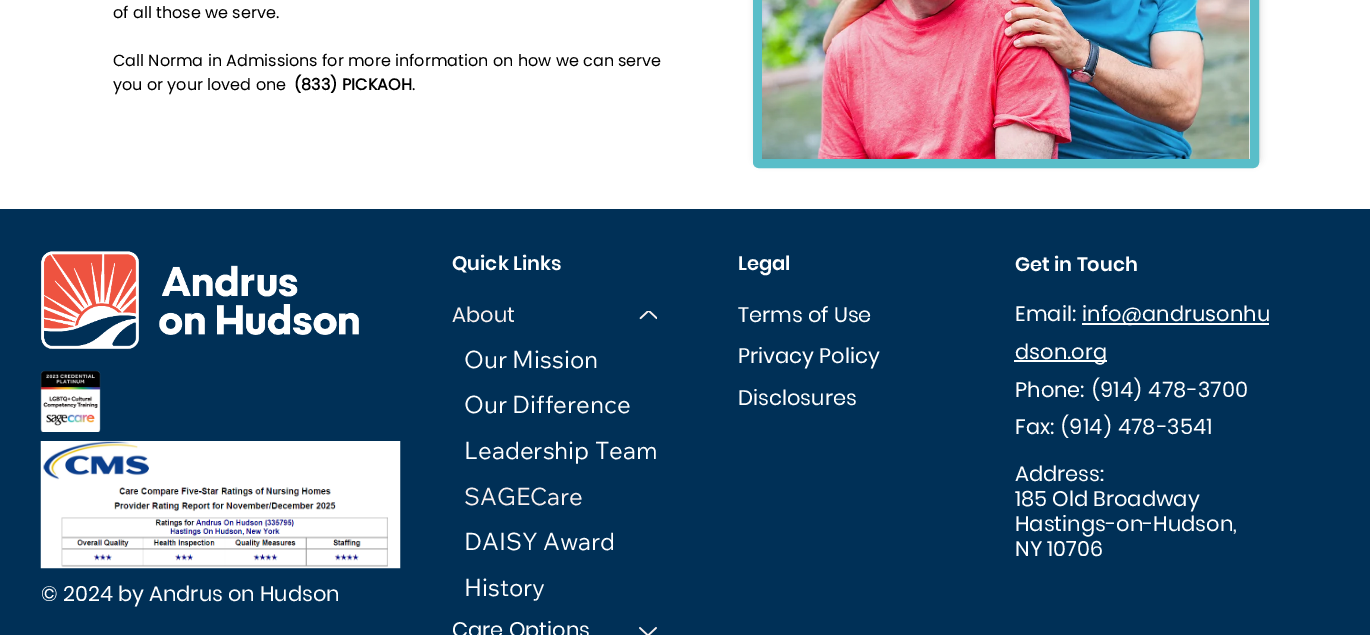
%!PS-Adobe-3.0
%%BoundingBox: 0 0 1370 635
%%LanguageLevel: 3
%%Pages: 1
%%EndComments
%%BeginProlog
/setink { dup -16 bitshift 255 div exch dup -8 bitshift 255 and 255 div exch 255 and 255 div setrgbcolor } def
/usefont { [ exch dup neg 0 0 3 -1 roll 0 0 ] selectfont } def
/setalpha { dup .setfillconstantalpha .setstrokeconstantalpha } def
/rrect { 5 dict begin { /r /h /w /y /x } { exch def } forall
  x r add y moveto x w add y 2 copy h add r arct x w add y h add x 1 index r arct
  x y h add x y r arct x y 2 copy exch w add exch r arct closepath end } def
/softshadow { 12 dict begin { /a /b /q /h /w /y /x } { exch def } forall gsave /was 0 def
  9 -2 -9 { dup b mul 4 div /e exch def 1 sub .425 mul 2.718 exch exp 1 add a .99 .min exch div /now exch def
    1 1 now sub 1 was sub div sub setalpha /was now def
    w h .min e 2 mul add 0 gt { x e sub y e sub w e 2 mul add h e 2 mul add
      q e add b .6 mul add w h .min 2 div e add .min 0 .max rrect fill } if } for grestore end } def
/drawimage { 5 dict begin { /h /w /y /x /name } { exch def } forall
  gsave x y translate w h scale
  w h 8 [w 0 0 h 0 0] name (r) file false 3 colorimage grestore end } def
%%EndProlog
%%BeginSetup
<< /PageSize [1370 635] /PageUsesTransparency true >> setpagedevice
%%EndSetup
%%Page: 1 1
0 .pushpdf14devicefilter
0 635 translate 1 -1 scale
4 setmiterlimit
16#FFFFFF setink
0 0 1370 635 rectfill
/Poppins-Regular 16.05 usefont
16#000000 setink
[
    [(of all those we serve.) 113 18]
    [(Call Norma in Admissions for more information on how we can serve) 113 66]
    [(you or your loved one) 113 90]
] { aload pop moveto show } forall
/Poppins-Bold 16.05 usefont
294 90 moveto (\(833\) PICKAOH) show
/Poppins-Regular 16.05 usefont
412 90 moveto (.) show
755 -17 505 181 6 3.5 0.16 softshadow
16#59BEC9 setink
9 setlinewidth
757.5 -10.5 497 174 1.5 rrect stroke
(img1.raw) 762 0 488 159 drawimage
16#003057 setink
0 209 1370 426 rectfill
/Poppins-SemiBold 19.5 usefont
16#FFFFFF setink
452 270 moveto (Quick Links) show
/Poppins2-Regular 21 usefont
16#FAF1F0 setink
452 322 moveto (About) show
(img2.raw) 639 311 18 9 drawimage
/WixMadeforText-Regular 24 usefont
16#FFFFFF setink
[
    [(Our Mission) 464 368]
    [(Our Difference) 464 413]
    [(Leadership Team) 464 459]
] { aload pop moveto show } forall
16#FAF1F0 setink
464 505 moveto (SAGECare) show
16#FFFFFF setink
464 550 moveto (DAISY Award) show
464 596 moveto (History) show
/Poppins2-Regular 21 usefont
452 637 moveto (Care Options) show
(img3.raw) 639 627 18 8 drawimage
/Poppins-SemiBold 19.5 usefont
738 270 moveto (Legal) show
/Poppins2-Regular 21 usefont
[
    [(Terms of Use) 738 322]
    [(Privacy Policy) 738 363]
    [(Disclosures) 738 405]
] { aload pop moveto show } forall
/Poppins-SemiBold 19.5 usefont
1015 271 moveto (Get in Touch) show
/Poppins-Regular 21 usefont
1015 321 moveto (Email:) show
1082 323 187 2 rectfill
1082 321 moveto (info@andrusonhu) show
1014 360 93 2 rectfill
[
    [(dson.org) 1015 359]
    [(Phone: \(914\) 478-3700) 1015 397]
    [(Fax: \(914\) 478-3541) 1015 434]
] { aload pop moveto show } forall
/Poppins2-Regular 21 usefont
[
    [(Address:) 1015 481]
    [(185 Old Broadway) 1015 506]
    [(Hastings-on-Hudson,) 1015 531]
    [(NY 10706) 1015 556]
] { aload pop moveto show } forall
(img4.raw) 41 251 318 98 drawimage
(img5.raw) 40 370 61 62 drawimage
(img6.raw) 40 441 361 128 drawimage
41 601 moveto (© 2024 by Andrus on Hudson) show
.poppdf14devicefilter showpage
%%EOF
